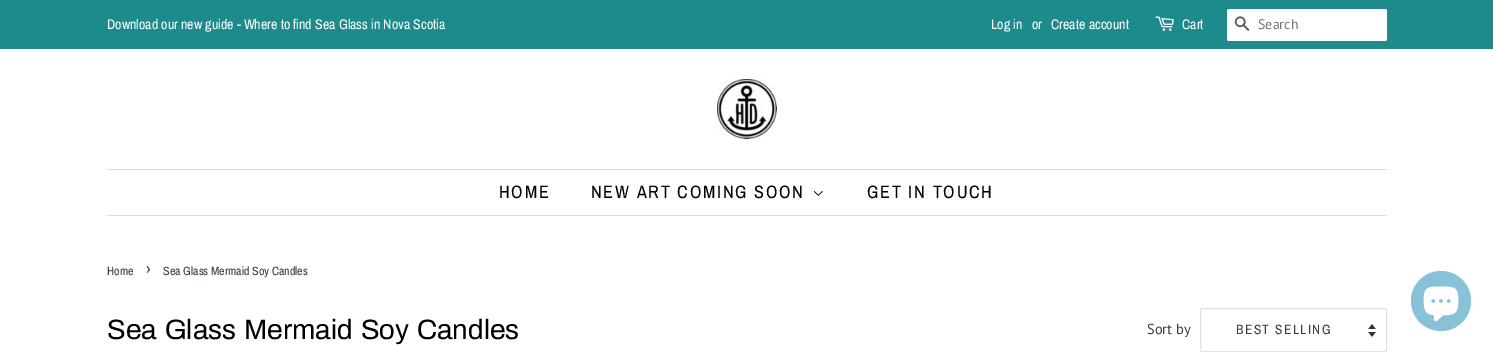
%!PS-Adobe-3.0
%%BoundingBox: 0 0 1493 352
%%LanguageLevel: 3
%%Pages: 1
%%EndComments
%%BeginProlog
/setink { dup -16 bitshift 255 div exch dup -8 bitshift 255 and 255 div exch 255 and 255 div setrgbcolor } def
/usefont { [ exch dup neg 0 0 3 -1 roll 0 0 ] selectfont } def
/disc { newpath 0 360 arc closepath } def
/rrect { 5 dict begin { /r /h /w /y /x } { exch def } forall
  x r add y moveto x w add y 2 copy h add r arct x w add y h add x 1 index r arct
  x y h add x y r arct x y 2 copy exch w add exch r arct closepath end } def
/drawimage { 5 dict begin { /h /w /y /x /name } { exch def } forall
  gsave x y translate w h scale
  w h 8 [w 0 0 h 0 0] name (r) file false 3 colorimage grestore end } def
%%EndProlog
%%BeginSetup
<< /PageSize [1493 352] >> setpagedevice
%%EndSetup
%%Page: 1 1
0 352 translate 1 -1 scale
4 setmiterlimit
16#FFFFFF setink
0 0 1493 352 rectfill
16#1D8A8C setink
0 0 1493 49 rectfill
/ArchivoNarrow-Regular 14 usefont
16#FFFFFF setink
[
    [(Download our new guide - Where to find Sea Glass in Nova Scotia) 107 29]
    [(Log in) 991 29]
    [(or) 1032 29]
    [(Create account) 1051 29]
] { aload pop moveto show } forall
(img1.raw) 1155 16 19 15 drawimage
1182 29 moveto (Cart) show
1227 9 160 32 2 rrect fill
(img2.raw) 1234 16 16 15 drawimage
/PTSans-Regular 14 usefont
16#757575 setink
1258 29 moveto (Search) show
(img3.raw) 717 79 60 60 drawimage
16#DDDDDD setink
107 169 1280 1 rectfill
107 215 1280 1 rectfill
/ArchivoNarrow-Regular 18 usefont
16#000000 setink
499 198 moveto 1.75 0 (HOME) ashow
591 198 moveto 1.75 0 (NEW ART COMING SOON) ashow
(img4.raw) 813 191 10 5 drawimage
867 198 moveto 1.75 0 (GET IN TOUCH) ashow
/ArchivoNarrow-Regular 12 usefont
16#403B37 setink
107 275 moveto (Home) show
/ArchivoNarrow-Regular 17 usefont
146 275 moveto (›) show
/ArchivoNarrow-Regular 12 usefont
163 275 moveto (Sea Glass Mermaid Soy Candles) show
/Archivo-Regular 28 usefont
16#000000 setink
107 339 moveto (Sea Glass Mermaid Soy Candles) show
/PTSans-Regular 14.5 usefont
16#403B37 setink
1147 334 moveto (Sort by) show
(img5.raw) 1368 324 8 13 drawimage
16#E2E2E1 setink
1200.5 308.5 186 43 1.5 rrect stroke
/ArchivoNarrow-Regular 13.5 usefont
16#403B37 setink
1236 334 moveto 1.4 0 (BEST SELLING) ashow
16#87C2D9 setink
1441 301 30 disc fill
(img6.raw) 1423 286 36 36 drawimage
showpage
%%EOF
